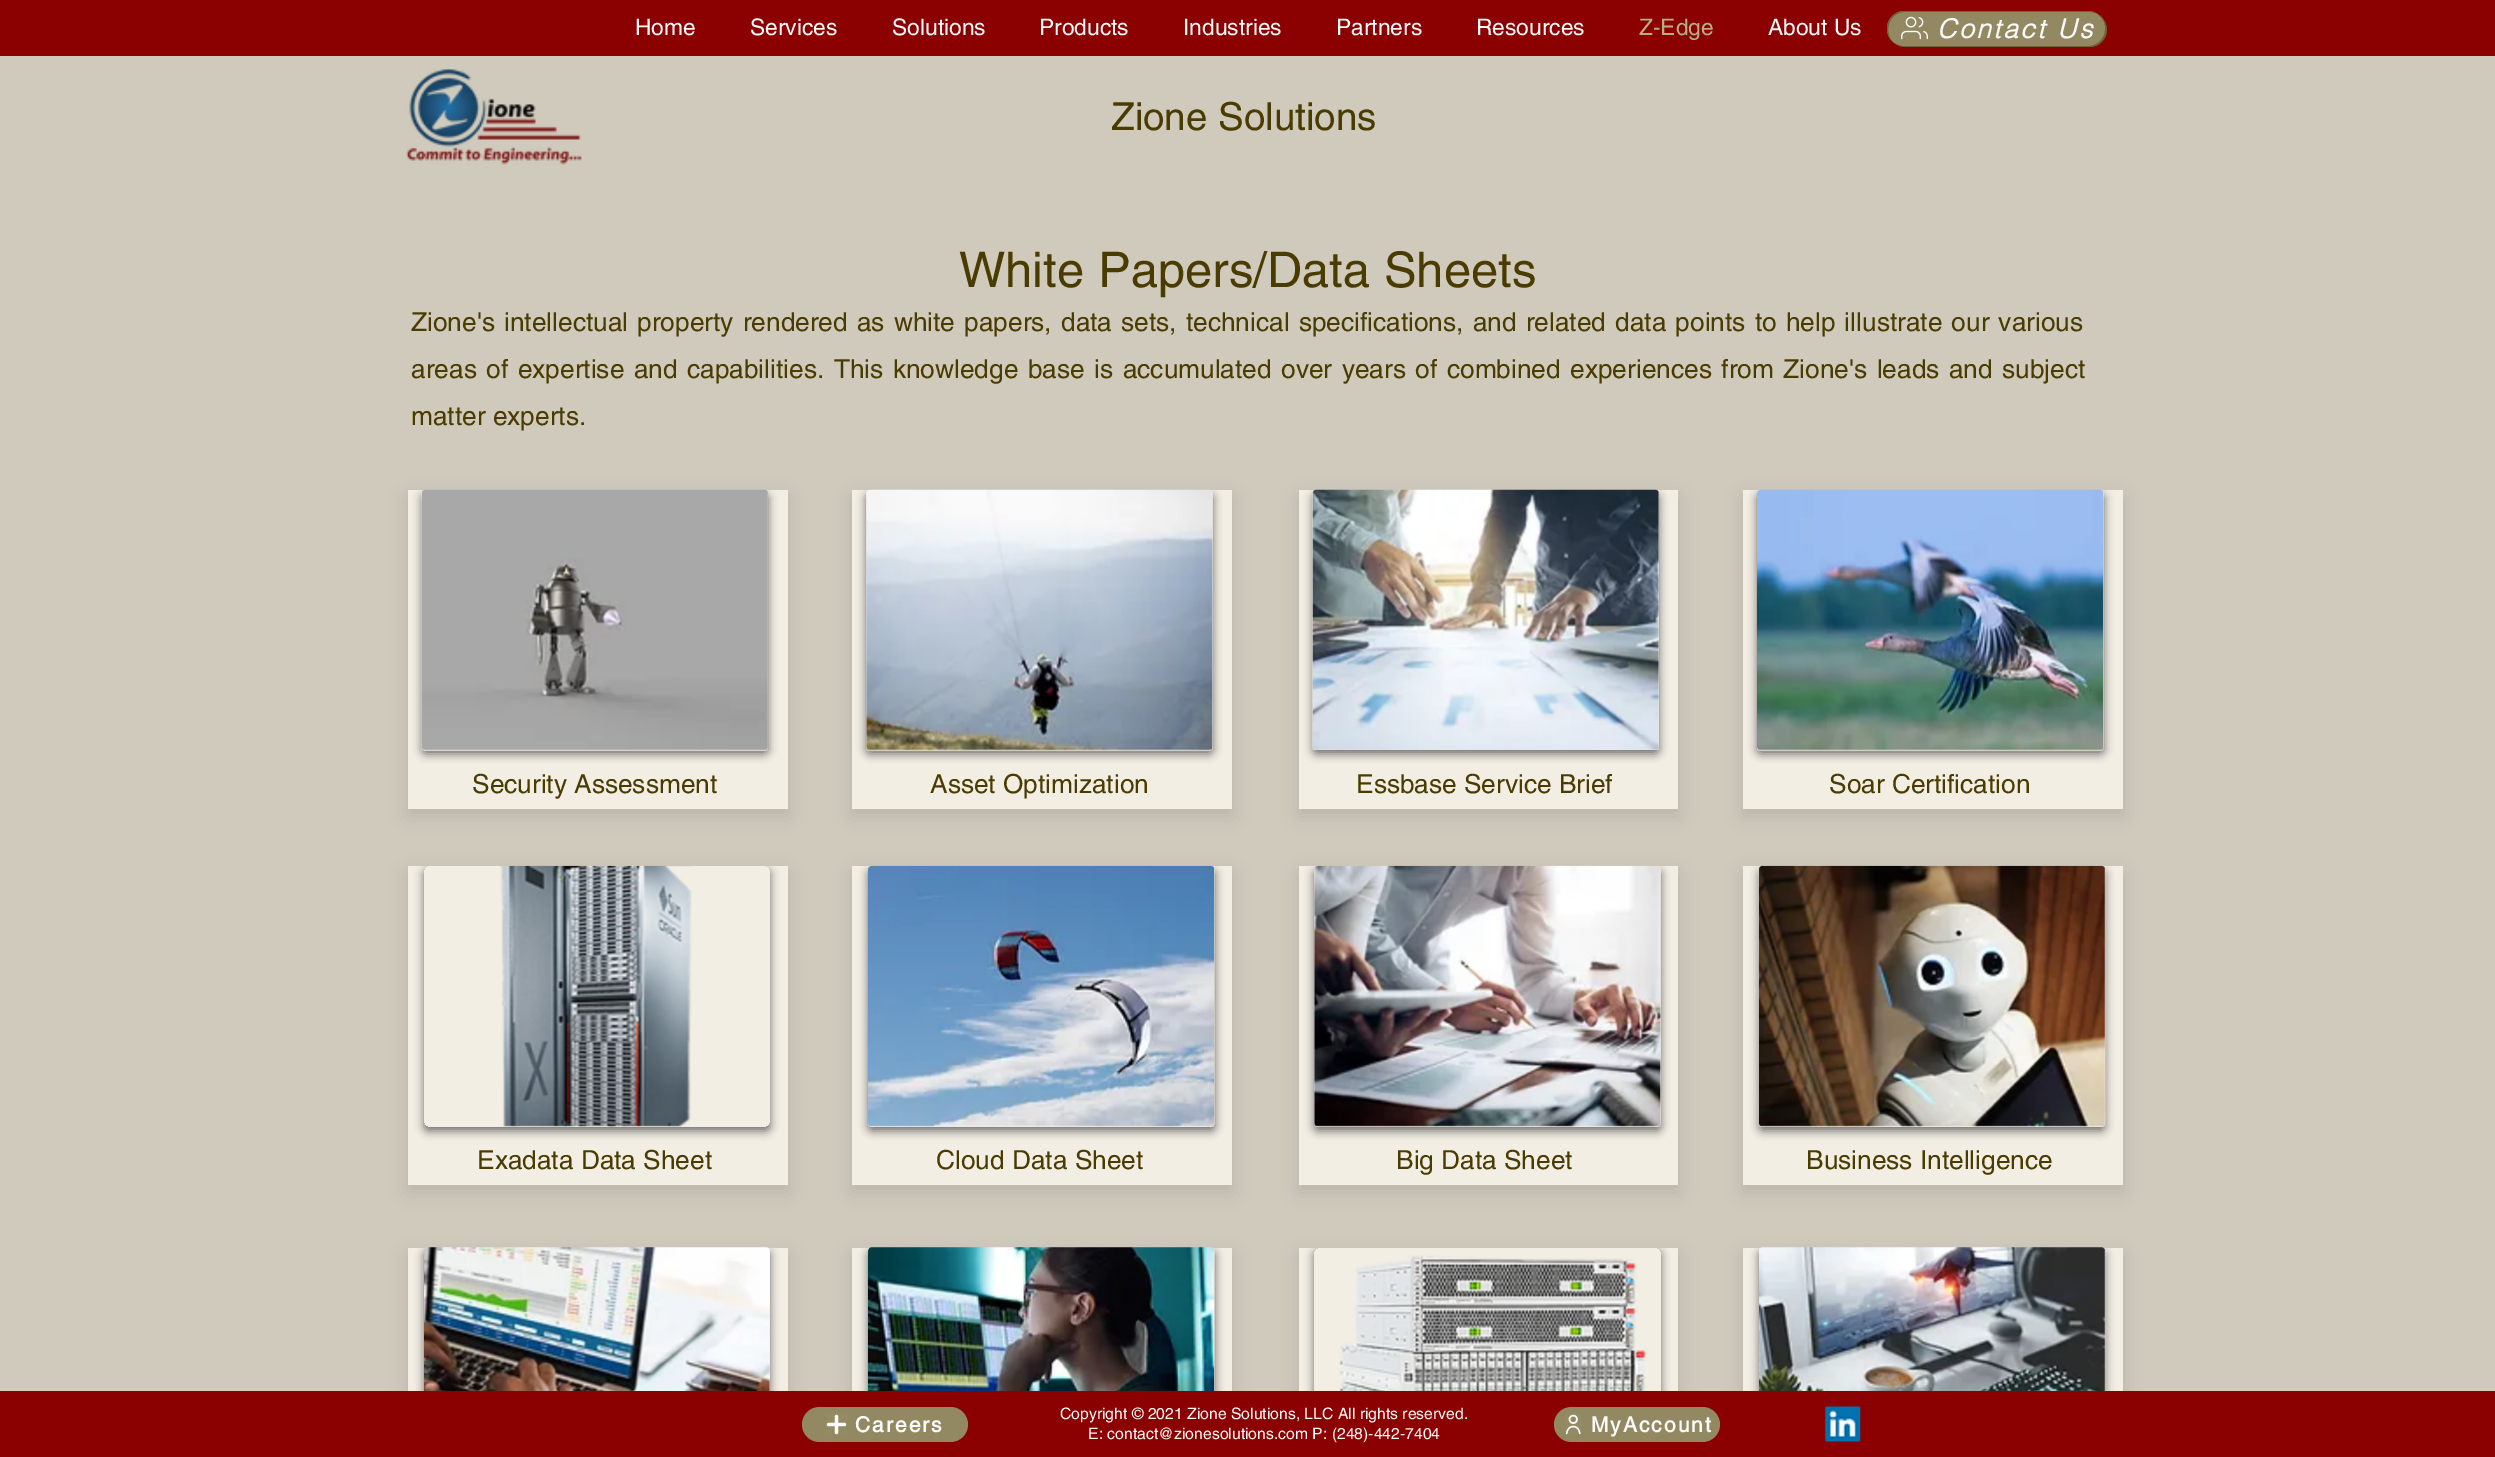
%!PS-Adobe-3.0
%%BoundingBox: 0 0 2495 1457
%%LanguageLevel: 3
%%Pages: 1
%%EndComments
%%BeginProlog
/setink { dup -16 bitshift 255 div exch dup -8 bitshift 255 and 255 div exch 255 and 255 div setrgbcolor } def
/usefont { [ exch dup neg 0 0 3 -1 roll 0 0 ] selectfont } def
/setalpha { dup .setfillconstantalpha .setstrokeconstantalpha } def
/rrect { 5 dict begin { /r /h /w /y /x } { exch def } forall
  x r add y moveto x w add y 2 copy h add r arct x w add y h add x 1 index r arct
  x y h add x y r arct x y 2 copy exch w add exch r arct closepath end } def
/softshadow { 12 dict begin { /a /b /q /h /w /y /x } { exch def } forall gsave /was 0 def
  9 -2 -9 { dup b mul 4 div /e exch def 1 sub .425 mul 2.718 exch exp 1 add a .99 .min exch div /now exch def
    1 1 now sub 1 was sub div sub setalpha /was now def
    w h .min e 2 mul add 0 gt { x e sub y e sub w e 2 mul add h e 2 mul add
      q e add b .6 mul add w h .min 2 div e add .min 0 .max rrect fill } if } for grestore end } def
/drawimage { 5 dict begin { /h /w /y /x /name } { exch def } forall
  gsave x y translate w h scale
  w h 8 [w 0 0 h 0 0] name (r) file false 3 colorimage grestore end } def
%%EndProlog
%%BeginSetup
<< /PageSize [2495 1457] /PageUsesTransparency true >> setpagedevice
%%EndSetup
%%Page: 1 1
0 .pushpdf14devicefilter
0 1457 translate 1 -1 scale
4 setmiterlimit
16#CFCABC setink
0 0 2495 1457 rectfill
16#8B0000 setink
0 0 2495 56 rectfill
/helvetica-Regular 22.75 usefont
16#FAFAFA setink
[
    [(Home) 635 35]
    [(Services) 750 35]
    [(Solutions) 892 35]
    [(Products) 1039 35]
    [(Industries) 1183 35]
    [(Partners) 1336 35]
    [(Resources) 1476 35]
] { aload pop moveto show } forall
16#B7AD89 setink
1639 35 moveto (Z-Edge) show
16#FAFAFA setink
1768 35 moveto (About Us) show
16#6E6337 setink
1892 41 moveto 1896 45 1900 47 1906 47 curveto 2090 47 lineto 2099 47 2107 39 2107 30 curveto 2107 24 2104 19 2100 15 curveto 2103 19 2105 23 2105 28 curveto 2105 38 2097 46 2088 46 curveto 1904 46 lineto 1900 46 1895 44 1892 41 curveto closepath fill
16#928962 setink
1887 11 218 35 17.5 rrect fill
16#6E6337 setink
1905 12 moveto 2089 12 lineto 2092 12 2095 13 2098 14 curveto 2095 12 2091 11 2088 11 curveto 1904 11 lineto 1895 11 1887 19 1887 28 curveto 1887 34 1889 39 1893 42 curveto 1883 32 1889 12 1905 12 curveto closepath fill
(img1.raw) 1901 16 27 24 drawimage
/helvetica-BoldItalic 26.25 usefont
16#FAFAFA setink
1937 38 moveto 2.6 0 (Contact Us) ashow
(img2.raw) 406 68 176 97 drawimage
/helvetica-Regular 38.5 usefont
16#4A3B00 setink
1111 130 moveto (Zione Solutions) show
/helvetica-Regular 49 usefont
959 287 moveto (White Papers/Data Sheets) show
/helvetica-Regular 26.25 usefont
411 331 moveto 1.9 0 32 (Zione's intellectual property rendered as white papers, data sets, technical specifications, and related data points to help illustrate our various) widthshow
411 378 moveto 2.25 0 32 (areas of expertise and capabilities. This knowledge base is accumulated over years of combined experiences from Zione's leads and subject) widthshow
411 425 moveto (matter experts.) show
16#000000 setink
408 497 380 319 0 9 0.1 softshadow
16#F2EEE4 setink
408 490 380 319 rectfill
gsave
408 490 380 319 rectclip
16#000000 setink
422 494 346 260 4 4.5 0.53 softshadow
grestore
(img3.raw) 421 489 347 262 drawimage
16#4A3B00 setink
472 793 moveto (Security Assessment) show
16#000000 setink
852 497 380 319 0 9 0.1 softshadow
16#F2EEE4 setink
852 490 380 319 rectfill
gsave
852 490 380 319 rectclip
16#000000 setink
866 494 347 260 4 4.5 0.53 softshadow
grestore
(img4.raw) 866 489 347 262 drawimage
16#4A3B00 setink
930 793 moveto (Asset Optimization) show
16#000000 setink
1299 497 379 319 0 9 0.1 softshadow
16#F2EEE4 setink
1299 490 379 319 rectfill
gsave
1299 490 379 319 rectclip
16#000000 setink
1313 494 346 260 4 4.5 0.53 softshadow
grestore
(img5.raw) 1312 489 347 261 drawimage
16#4A3B00 setink
1356 793 moveto (Essbase Service Brief) show
16#000000 setink
1743 497 380 319 0 9 0.1 softshadow
16#F2EEE4 setink
1743 490 380 319 rectfill
gsave
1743 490 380 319 rectclip
16#000000 setink
1757 494 347 260 4 4.5 0.53 softshadow
grestore
(img6.raw) 1757 489 347 262 drawimage
16#4A3B00 setink
1829 793 moveto (Soar Certification) show
16#000000 setink
408 873 380 319 0 9 0.1 softshadow
16#F2EEE4 setink
408 866 380 319 rectfill
gsave
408 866 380 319 rectclip
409 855 moveto 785 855 lineto 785 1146 lineto 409 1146 lineto closepath 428 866 moveto 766 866 lineto 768 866 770 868 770 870 curveto 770 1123 lineto 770 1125 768 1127 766 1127 curveto 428 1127 lineto 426 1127 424 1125 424 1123 curveto 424 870 lineto 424 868 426 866 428 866 curveto closepath eoclip newpath
16#000000 setink
424 870 346 261 4 4.5 0.53 softshadow
grestore
(img7.raw) 500 865 192 262 drawimage
16#4A3B00 setink
477 1169 moveto (Exadata Data Sheet) show
16#000000 setink
852 873 380 319 0 9 0.1 softshadow
16#F2EEE4 setink
852 866 380 319 rectfill
gsave
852 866 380 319 rectclip
16#000000 setink
868 870 347 261 4 4.5 0.53 softshadow
grestore
(img8.raw) 868 865 347 262 drawimage
16#4A3B00 setink
936 1169 moveto (Cloud Data Sheet) show
16#000000 setink
1299 873 379 319 0 9 0.1 softshadow
16#F2EEE4 setink
1299 866 379 319 rectfill
gsave
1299 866 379 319 rectclip
16#000000 setink
1314 870 347 261 4 4.5 0.53 softshadow
grestore
(img9.raw) 1314 865 347 262 drawimage
16#4A3B00 setink
1396 1169 moveto (Big Data Sheet) show
16#000000 setink
1743 873 380 319 0 9 0.1 softshadow
16#F2EEE4 setink
1743 866 380 319 rectfill
gsave
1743 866 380 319 rectclip
16#000000 setink
1759 870 346 261 4 4.5 0.53 softshadow
grestore
(img10.raw) 1758 865 348 262 drawimage
16#4A3B00 setink
1806 1169 moveto (Business Intelligence) show
16#000000 setink
408 1255 380 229 0 9 0.1 softshadow
16#F2EEE4 setink
408 1248 380 143 rectfill
gsave
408 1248 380 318 rectclip
16#000000 setink
424 1251 346 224 4 4.5 0.53 softshadow
grestore
(img11.raw) 424 1247 346 144 drawimage
16#000000 setink
852 1255 380 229 0 9 0.1 softshadow
16#F2EEE4 setink
852 1248 380 143 rectfill
gsave
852 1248 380 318 rectclip
16#000000 setink
868 1251 347 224 4 4.5 0.53 softshadow
grestore
(img12.raw) 868 1247 347 144 drawimage
16#000000 setink
1299 1255 379 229 0 9 0.1 softshadow
16#F2EEE4 setink
1299 1248 379 143 rectfill
gsave
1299 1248 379 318 rectclip
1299 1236 moveto 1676 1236 lineto 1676 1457 lineto 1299 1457 lineto closepath 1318 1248 moveto 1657 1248 lineto 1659 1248 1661 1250 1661 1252 curveto 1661 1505 lineto 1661 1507 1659 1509 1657 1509 curveto 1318 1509 lineto 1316 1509 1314 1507 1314 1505 curveto 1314 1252 lineto 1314 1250 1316 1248 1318 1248 curveto closepath eoclip newpath
16#000000 setink
1314 1251 347 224 4 4.5 0.53 softshadow
grestore
(img13.raw) 1338 1255 309 136 drawimage
16#000000 setink
1743 1255 380 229 0 9 0.1 softshadow
16#F2EEE4 setink
1743 1248 380 143 rectfill
gsave
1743 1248 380 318 rectclip
16#000000 setink
1759 1251 346 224 4 4.5 0.53 softshadow
grestore
(img14.raw) 1759 1247 347 144 drawimage
16#8B0000 setink
0 1391 2495 66 rectfill
16#928962 setink
802 1407 166 35 17.5 rrect fill
(img15.raw) 826 1414 21 21 drawimage
/helvetica-Bold 21 usefont
16#FAFAFA setink
855 1432 moveto 2 0 (Careers) ashow
/helvetica-Regular 15.75 usefont
1060 1419 moveto (Copyright © 2021 Zione Solutions, LLC All rights reserved.) show
1088 1439 moveto (E: contact@zionesolutions.com P: \(248\)-442-7404) show
16#928962 setink
1554 1407 166 35 17.5 rrect fill
(img16.raw) 1565 1414 16 21 drawimage
/helvetica-Bold 21 usefont
16#FAFAFA setink
1591 1432 moveto 2 0 (MyAccount) ashow
(img17.raw) 1825 1406 36 36 drawimage
.poppdf14devicefilter showpage
%%EOF
